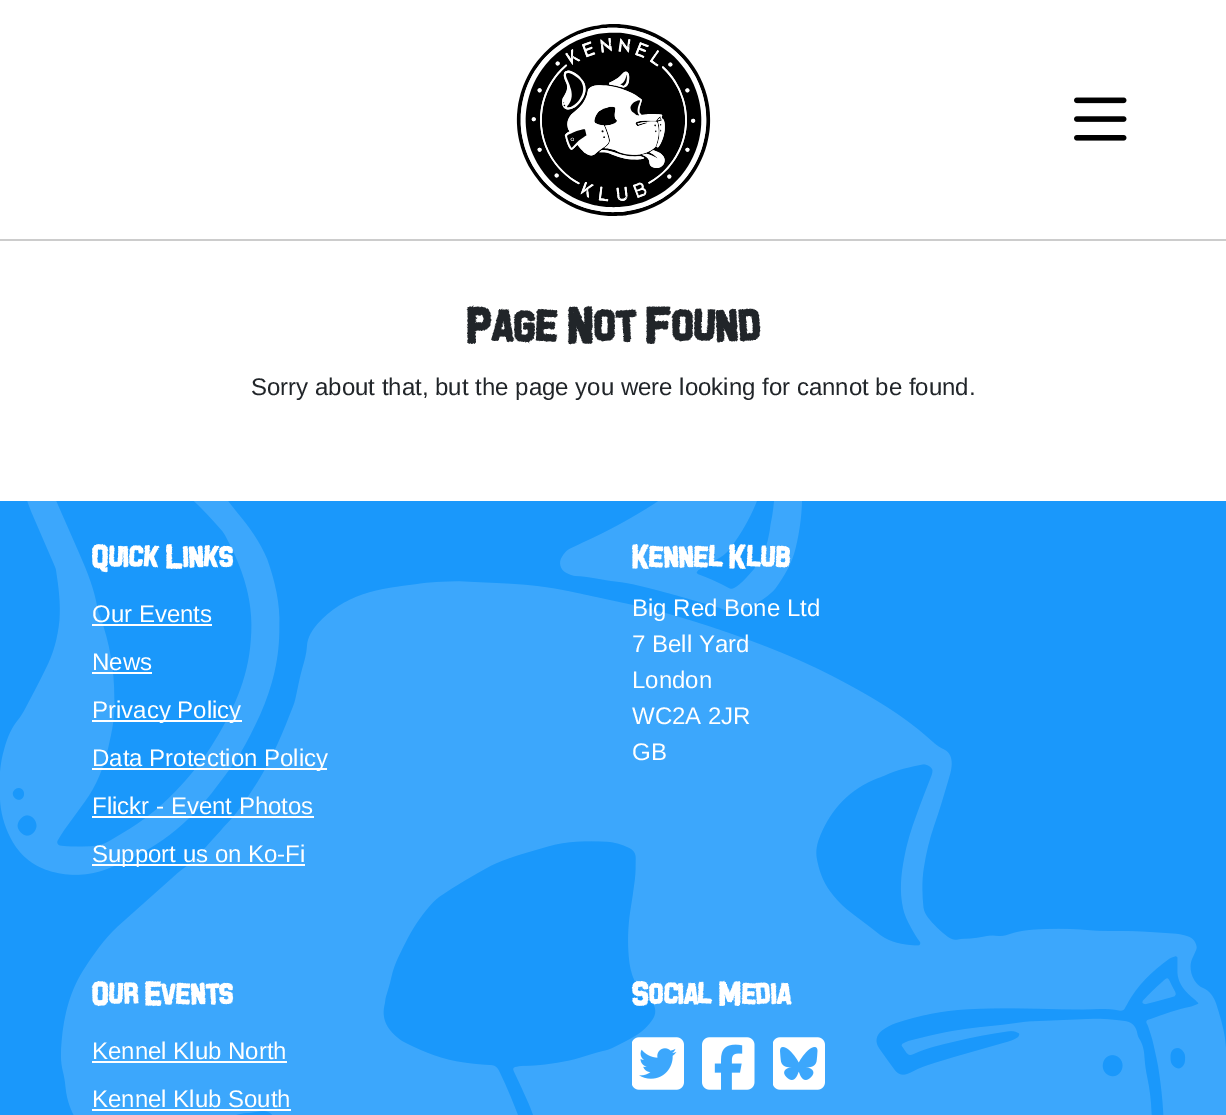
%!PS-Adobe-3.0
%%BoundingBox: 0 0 1226 1115
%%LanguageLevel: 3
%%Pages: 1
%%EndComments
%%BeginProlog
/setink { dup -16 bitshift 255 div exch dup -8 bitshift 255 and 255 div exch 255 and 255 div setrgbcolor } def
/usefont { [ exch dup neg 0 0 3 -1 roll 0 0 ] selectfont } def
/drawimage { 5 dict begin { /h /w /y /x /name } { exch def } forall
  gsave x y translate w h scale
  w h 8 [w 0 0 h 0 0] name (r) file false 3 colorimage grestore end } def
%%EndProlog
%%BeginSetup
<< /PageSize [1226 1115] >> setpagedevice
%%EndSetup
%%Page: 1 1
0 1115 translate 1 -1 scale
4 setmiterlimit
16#FFFFFF setink
0 0 1226 1115 rectfill
16#CCCCCC setink
0 239 1226 2 rectfill
(img1.raw) 516 24 195 192 drawimage
(img2.raw) 1074 97 53 44 drawimage
/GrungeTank-Bold 51.5 usefont
16#212529 setink
467 344 moveto (Page Not Found) show
/LiberationSans-Regular 24 usefont
251 395 moveto (Sorry about that, but the page you were looking for cannot be found.) show
16#1A98FB setink
0 501 1226 614 rectfill
(img3.raw) 0 501 1226 614 drawimage
/GrungeTank-Bold 34.25 usefont
16#FFFFFF setink
92 569 moveto (Quick Links) show
/LiberationSans-Regular 24 usefont
92 622 moveto (Our Events) show
92 624 120 2 rectfill
92 670 moveto (News) show
92 672 60 2 rectfill
92 720 150 2 rectfill
92 718 moveto (Privacy Policy) show
92 768 235 2 rectfill
92 766 moveto (Data Protection Policy) show
92 814 moveto (Flickr - Event Photos) show
92 816 222 2 rectfill
92 864 213 2 rectfill
92 862 moveto (Support us on Ko-Fi) show
/GrungeTank-Bold 34.25 usefont
632 569 moveto (Kennel Klub) show
/LiberationSans-Regular 24 usefont
[
    [(Big Red Bone Ltd) 632 616]
    [(7 Bell Yard) 632 652]
    [(London) 632 688]
    [(WC2A 2JR) 632 724]
    [(GB) 632 760]
] { aload pop moveto show } forall
/GrungeTank-Bold 34.25 usefont
92 1006 moveto (Our Events) show
/LiberationSans-Regular 24 usefont
92 1059 moveto (Kennel Klub North) show
92 1061 195 2 rectfill
92 1107 moveto (Kennel Klub South) show
92 1109 199 2 rectfill
/GrungeTank-Bold 34.25 usefont
632 1006 moveto (Social Media) show
(img4.raw) 632 1037 52 53 drawimage
(img5.raw) 702 1037 53 53 drawimage
(img6.raw) 773 1037 52 53 drawimage
showpage
%%EOF
